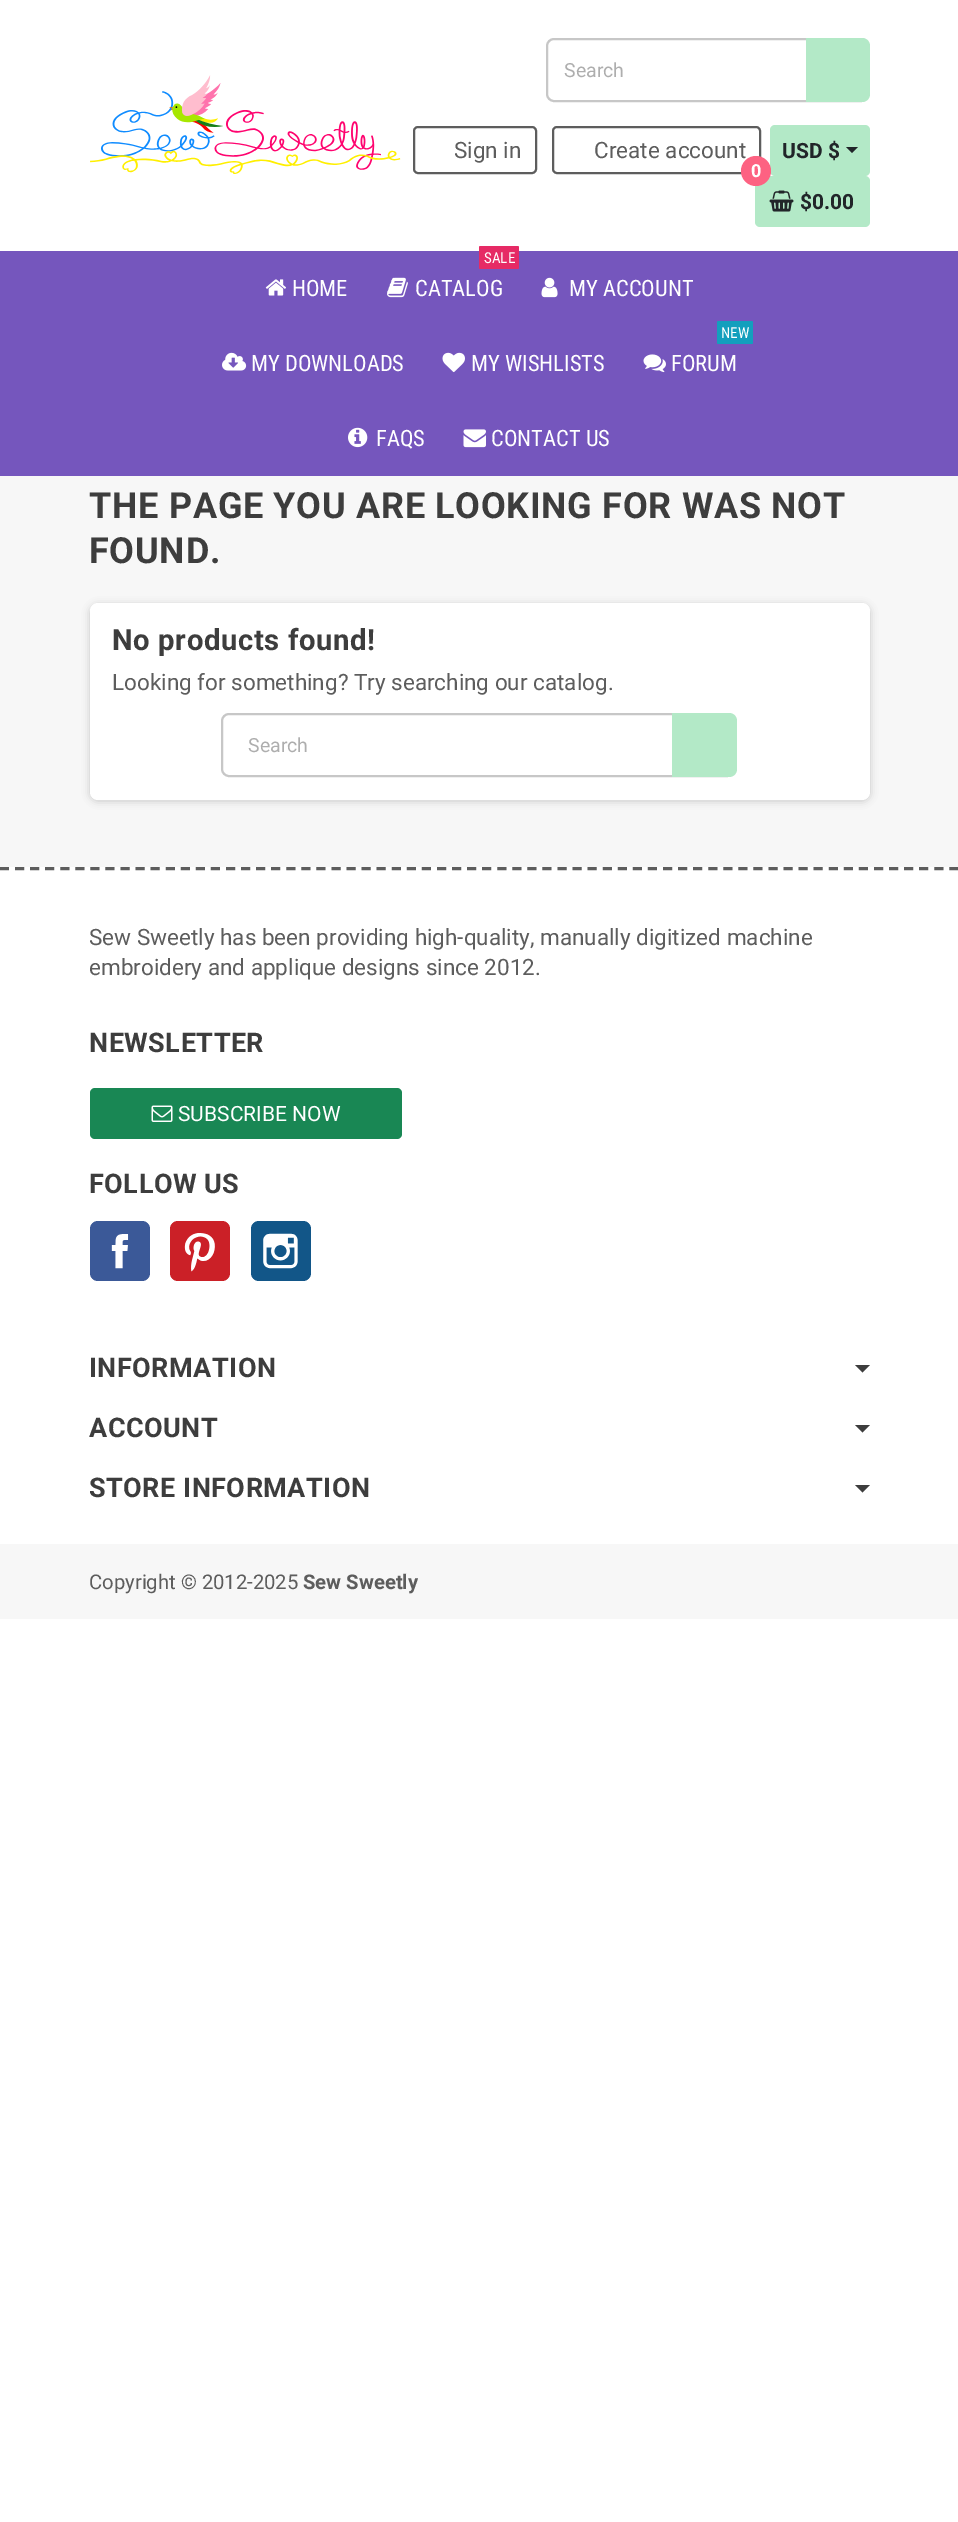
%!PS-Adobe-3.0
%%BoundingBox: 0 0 958 2522
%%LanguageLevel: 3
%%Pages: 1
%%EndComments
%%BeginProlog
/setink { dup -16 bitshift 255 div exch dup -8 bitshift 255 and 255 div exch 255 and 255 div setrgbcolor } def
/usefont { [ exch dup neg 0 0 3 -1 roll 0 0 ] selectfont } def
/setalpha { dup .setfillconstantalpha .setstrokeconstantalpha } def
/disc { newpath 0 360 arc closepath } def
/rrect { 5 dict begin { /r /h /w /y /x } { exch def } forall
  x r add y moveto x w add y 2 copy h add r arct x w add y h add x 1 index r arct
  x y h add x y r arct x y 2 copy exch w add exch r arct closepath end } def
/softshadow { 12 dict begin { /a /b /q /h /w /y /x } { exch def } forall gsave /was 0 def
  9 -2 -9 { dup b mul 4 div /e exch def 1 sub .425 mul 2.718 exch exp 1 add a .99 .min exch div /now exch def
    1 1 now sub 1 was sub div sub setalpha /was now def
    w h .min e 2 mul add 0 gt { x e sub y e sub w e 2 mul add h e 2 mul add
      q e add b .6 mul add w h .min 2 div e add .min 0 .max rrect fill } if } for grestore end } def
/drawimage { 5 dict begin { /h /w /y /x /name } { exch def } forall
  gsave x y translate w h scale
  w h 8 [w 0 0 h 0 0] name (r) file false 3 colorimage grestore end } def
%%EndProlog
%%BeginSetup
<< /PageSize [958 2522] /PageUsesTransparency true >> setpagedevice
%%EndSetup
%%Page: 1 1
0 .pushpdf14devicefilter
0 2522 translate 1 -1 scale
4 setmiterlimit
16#FFFFFF setink
0 0 958 2522 rectfill
(img1.raw) 90 75 311 99 drawimage
16#C7C7C7 setink
2 setlinewidth
547 39 321 62 7 rrect stroke
/Roboto-Regular 19.5 usefont
16#AEAEAE setink
564 77 moveto (Search) show
16#B3E9C7 setink
806 38 moveto 862 38 lineto 866.5 38 870 41.5 870 46 curveto 870 94 lineto 870 98.5 866.5 102 862 102 curveto 806 102 lineto closepath fill
16#5D5D5D setink
414 127 122 46 4 rrect stroke
/Roboto-Regular 22.5 usefont
454 158 moveto (Sign in) show
553 127 207 46 4 rrect stroke
594 158 moveto (Create account) show
16#B3E9C7 setink
770 125 100 51 5 rrect fill
/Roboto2-Bold 21 usefont
16#212529 setink
782 158 moveto (USD $) show
846 147 moveto 858 147 lineto 852 153 lineto closepath fill
16#B3E9C7 setink
755 176 115 51 5 rrect fill
16#FD6282 setink
756 171 15 disc fill
/Roboto2-Bold 18 usefont
16#FFFFFF setink
751 177 moveto (0) show
(img2.raw) 769 190 25 22 drawimage
/Roboto2-Bold 21 usefont
16#212529 setink
800 209 moveto ($0.00) show
16#7556BD setink
0 251 958 225 rectfill
(img3.raw) 265 279 21 17 drawimage
/RobotoCondensed-Regular 22.5 usefont
16#FFFFFF setink
292 296 moveto (HOME) show
16#E62A65 setink
479 246 40 23 1.5 rrect fill
/RobotoCondensed-Regular 15 usefont
16#FFFFFF setink
484 263 moveto (SALE) show
(img4.raw) 387 277 21 21 drawimage
/RobotoCondensed-Regular 22.5 usefont
415 296 moveto (CATALOG) show
(img5.raw) 541 277 17 21 drawimage
569 296 moveto (MY ACCOUNT) show
(img6.raw) 222 352 25 19 drawimage
251 371 moveto (MY DOWNLOADS) show
(img7.raw) 442 352 23 21 drawimage
471 371 moveto (MY WISHLISTS) show
16#139FBD setink
717 321 36 23 1.5 rrect fill
/RobotoCondensed-Regular 15 usefont
16#FFFFFF setink
721 338 moveto (NEW) show
(img8.raw) 643 354 23 19 drawimage
/RobotoCondensed-Regular 22.5 usefont
671 371 moveto (FORUM) show
(img9.raw) 348 427 20 21 drawimage
376 446 moveto (FAQS) show
(img10.raw) 463 429 23 19 drawimage
491 446 moveto (CONTACT US) show
16#F7F7F7 setink
0 476 958 391 rectfill
/Roboto-Bold 36 usefont
16#3D3D3D setink
89 518 moveto 0.7 0 (THE PAGE YOU ARE LOOKING FOR WAS NOT) ashow
89 563 moveto 0.7 0 (FOUND.) ashow
16#000000 setink
90 605 780 196 8 4 0.2 softshadow
16#FFFFFF setink
90 603 780 197 8 rrect fill
/Roboto-Bold 29.25 usefont
16#3D3D3D setink
112 650 moveto 0.6 0 (No products found!) ashow
/Roboto-Regular 22.5 usefont
16#5D5D5D setink
112 690 moveto (Looking for something? Try searching our catalog.) show
16#C7C7C7 setink
222 714 512 62 7 rrect stroke
/Roboto-Regular 19.5 usefont
16#AEAEAE setink
248 752 moveto (Search) show
16#B3E9C7 setink
672 713 moveto 729 713 lineto 733.5 713 737 716.5 737 721 curveto 737 769 lineto 737 773.5 733.5 777 729 777 curveto 672 777 lineto closepath fill
16#5D5D5D setink
3 setlinewidth
[9 6.07] 0 setdash
0 868.5 moveto 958.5 868.5 lineto stroke
/Roboto-Regular 22.5 usefont
89 945 moveto (Sew Sweetly has been providing high-quality, manually digitized machine) show
89 975 moveto (embroidery and applique designs since 2012.) show
/Roboto-Bold 27 usefont
16#3D3D3D setink
89 1052 moveto 0.5 0 (NEWSLETTER) ashow
16#198754 setink
90 1088 312 51 5 rrect fill
(img11.raw) 151 1105 22 17 drawimage
/Roboto-Regular 21 usefont
16#FFFFFF setink
178 1121 moveto (SUBSCRIBE NOW) show
/Roboto-Bold 27 usefont
16#3D3D3D setink
89 1193 moveto 0.5 0 (FOLLOW US) ashow
16#3B5998 setink
90 1221 60 60 8 rrect fill
(img12.raw) 111 1234 18 35 drawimage
16#CB2027 setink
170 1221 60 60 8 rrect fill
(img13.raw) 184 1233 31 39 drawimage
16#125688 setink
251 1221 60 60 8 rrect fill
(img14.raw) 263 1233 35 36 drawimage
16#3D3D3D setink
89 1377 moveto 0.5 0 (INFORMATION) ashow
855 1365 moveto 870 1365 lineto 862.5 1372.5 lineto closepath fill
89 1437 moveto 0.5 0 (ACCOUNT) ashow
855 1425 moveto 870 1425 lineto 862.5 1432.5 lineto closepath fill
89 1497 moveto 0.5 0 (STORE INFORMATION) ashow
855 1485 moveto 870 1485 lineto 862.5 1492.5 lineto closepath fill
16#F7F7F7 setink
0 1544 958 75 rectfill
/Roboto-Regular 20.25 usefont
16#5D5D5D setink
89 1589 moveto (Copyright © 2012-2025) show
/Roboto2-Bold 20.25 usefont
303 1589 moveto (Sew Sweetly) show
.poppdf14devicefilter showpage
%%EOF
